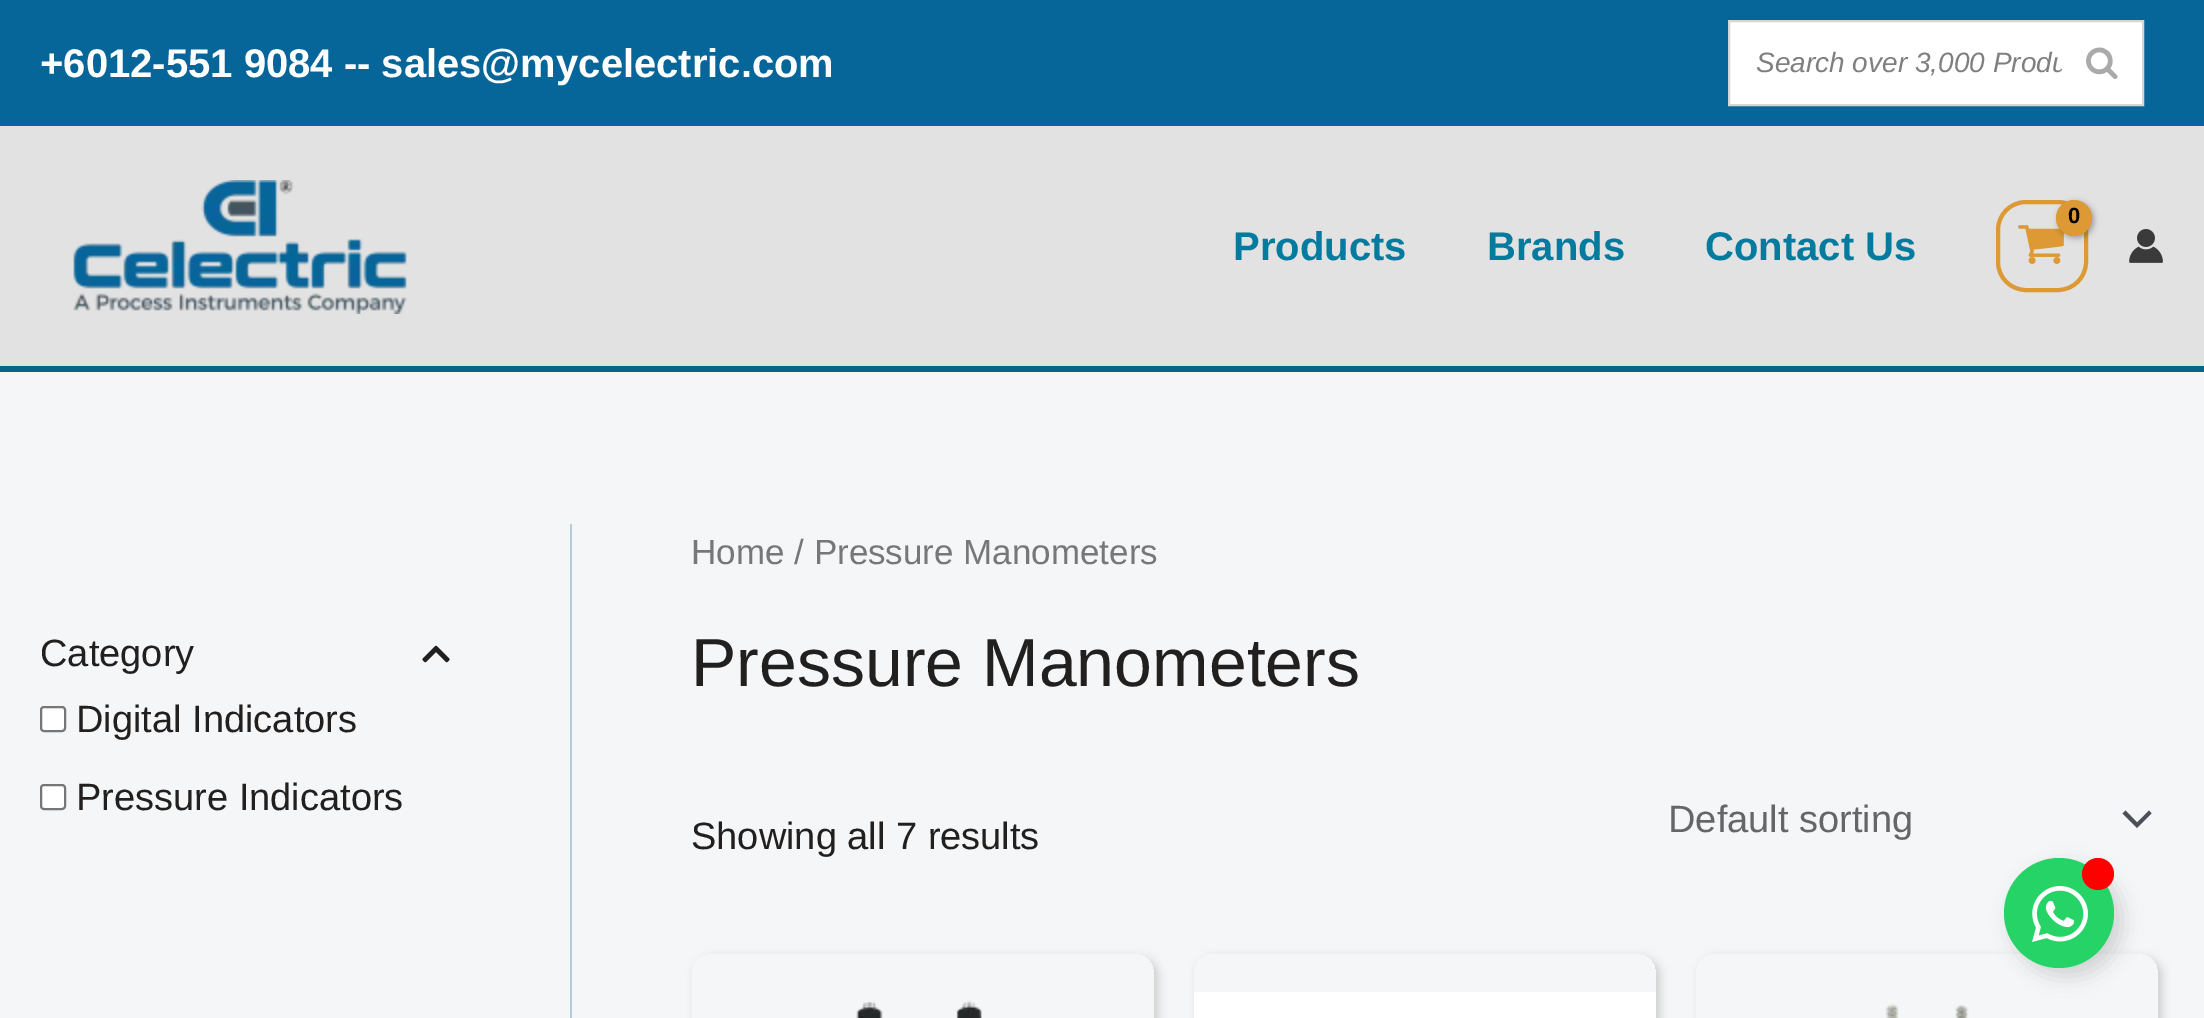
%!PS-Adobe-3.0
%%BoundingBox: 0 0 2204 1018
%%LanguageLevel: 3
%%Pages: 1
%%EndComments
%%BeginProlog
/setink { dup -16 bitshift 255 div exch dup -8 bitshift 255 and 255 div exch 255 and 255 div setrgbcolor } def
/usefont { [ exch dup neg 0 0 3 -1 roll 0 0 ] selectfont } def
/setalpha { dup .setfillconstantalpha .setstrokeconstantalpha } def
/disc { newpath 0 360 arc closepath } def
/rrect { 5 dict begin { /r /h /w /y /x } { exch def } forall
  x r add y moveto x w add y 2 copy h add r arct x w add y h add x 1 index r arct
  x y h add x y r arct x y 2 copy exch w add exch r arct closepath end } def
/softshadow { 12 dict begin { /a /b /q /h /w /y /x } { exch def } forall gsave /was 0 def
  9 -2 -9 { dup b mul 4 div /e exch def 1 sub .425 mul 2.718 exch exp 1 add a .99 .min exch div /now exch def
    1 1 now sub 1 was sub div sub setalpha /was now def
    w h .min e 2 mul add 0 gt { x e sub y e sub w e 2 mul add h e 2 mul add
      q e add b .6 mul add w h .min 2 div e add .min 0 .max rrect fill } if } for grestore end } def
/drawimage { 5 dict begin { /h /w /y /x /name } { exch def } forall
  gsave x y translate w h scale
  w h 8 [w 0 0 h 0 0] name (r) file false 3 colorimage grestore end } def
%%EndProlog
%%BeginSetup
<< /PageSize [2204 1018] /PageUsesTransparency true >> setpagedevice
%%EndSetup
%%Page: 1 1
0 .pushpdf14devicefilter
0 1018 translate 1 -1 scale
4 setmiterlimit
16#F4F6F8 setink
0 0 2204 1018 rectfill
16#076699 setink
0 0 2204 126 rectfill
/LiberationSans-Bold 40 usefont
16#FFFFFF setink
40 77 moveto (+6012-551 9084 -- sales@mycelectric.com) show
1729 21 moveto 2143 21 lineto 2143 105 lineto 1729 105 lineto closepath gsave fill grestore
16#D6D6D6 setink
2 setlinewidth
stroke
gsave
1750 46 312 32 rectclip
/LiberationSans-Italic 28 usefont
16#7F7F7F setink
1756 72 moveto (Search over 3,000 Produ) show
grestore
(img1.raw) 2086 47 32 32 drawimage
16#E2E2E2 setink
0 126 2204 240 rectfill
16#076688 setink
0 366 2204 6 rectfill
(img2.raw) 73 180 334 134 drawimage
16#DD9933 setink
4 setlinewidth
1998 202 88 88 28 rrect stroke
(img3.raw) 2018 225 46 39 drawimage
16#000000 setink
2058 202 36 36 18 3 0.3 softshadow
16#DD9933 setink
2074 218 18 disc fill
/LiberationSans-Bold 22 usefont
16#000000 setink
2068 223 moveto -1 0 (0) ashow
/LiberationSans-Bold 40 usefont
16#027B9E setink
[
    [(Products) 1233 260]
    [(Brands) 1487 260]
    [(Contact Us) 1705 260]
] { aload pop moveto show } forall
(img4.raw) 2129 229 34 34 drawimage
/LiberationSans-Regular 38 usefont
16#221F1F setink
40 666 moveto (Category) show
(img5.raw) 422 645 28 18 drawimage
16#FFFFFF setink
41 707 24 24 3 rrect gsave fill grestore
16#767676 setink
2 setlinewidth
stroke
16#221F1F setink
76 732 moveto (Digital Indicators) show
16#FFFFFF setink
41 785 24 24 3 rrect gsave fill grestore
16#767676 setink
stroke
16#221F1F setink
76 810 moveto (Pressure Indicators) show
16#B3CDDC setink
570 524 2 494 rectfill
/LiberationSans-Regular 35 usefont
16#777777 setink
691 564 moveto (Home / Pressure Manometers) show
/LiberationSans-Regular 68 usefont
16#221F1F setink
691 686 moveto (Pressure Manometers) show
/LiberationSans-Regular 38 usefont
691 849 moveto (Showing all 7 results) show
16#4B4F58 setink
2122.5 813.5 moveto 2137 828 lineto 2151.5 813.5 lineto 2149 810.5 lineto 2137 822.5 lineto 2125.5 810.5 lineto closepath fill
16#666666 setink
1668 832 moveto (Default sorting) show
gsave
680 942 moveto 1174 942 lineto 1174 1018 lineto 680 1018 lineto closepath 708 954 moveto 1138 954 lineto 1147 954 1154 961 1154 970 curveto 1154 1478 lineto 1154 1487 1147 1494 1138 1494 curveto 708 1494 lineto 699 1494 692 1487 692 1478 curveto 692 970 lineto 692 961 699 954 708 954 curveto closepath eoclip newpath
16#CCCCCC setink
696 958 462 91 16 5 1 softshadow
grestore
(img6.raw) 856 1000 126 18 drawimage
gsave
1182 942 moveto 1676 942 lineto 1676 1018 lineto 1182 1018 lineto closepath 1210 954 moveto 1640 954 lineto 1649 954 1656 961 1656 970 curveto 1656 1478 lineto 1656 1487 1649 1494 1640 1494 curveto 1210 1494 lineto 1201 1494 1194 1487 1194 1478 curveto 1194 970 lineto 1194 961 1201 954 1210 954 curveto closepath eoclip newpath
16#CCCCCC setink
1198 958 462 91 16 5 1 softshadow
grestore
16#FFFFFF setink
1194 992 462 26 rectfill
gsave
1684 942 moveto 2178 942 lineto 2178 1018 lineto 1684 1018 lineto closepath 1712 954 moveto 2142 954 lineto 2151 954 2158 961 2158 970 curveto 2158 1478 lineto 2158 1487 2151 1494 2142 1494 curveto 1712 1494 lineto 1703 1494 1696 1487 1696 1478 curveto 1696 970 lineto 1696 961 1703 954 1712 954 curveto closepath eoclip newpath
16#CCCCCC setink
1700 958 462 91 16 5 1 softshadow
grestore
(img7.raw) 1885 1003 84 15 drawimage
16#000000 setink
2012 866 110 110 55 10 0.15 softshadow
16#25D366 setink
2059 913 55 disc fill
(img8.raw) 2032 886 56 56 drawimage
16#FF0000 setink
2098 874 16 disc fill
.poppdf14devicefilter showpage
%%EOF
